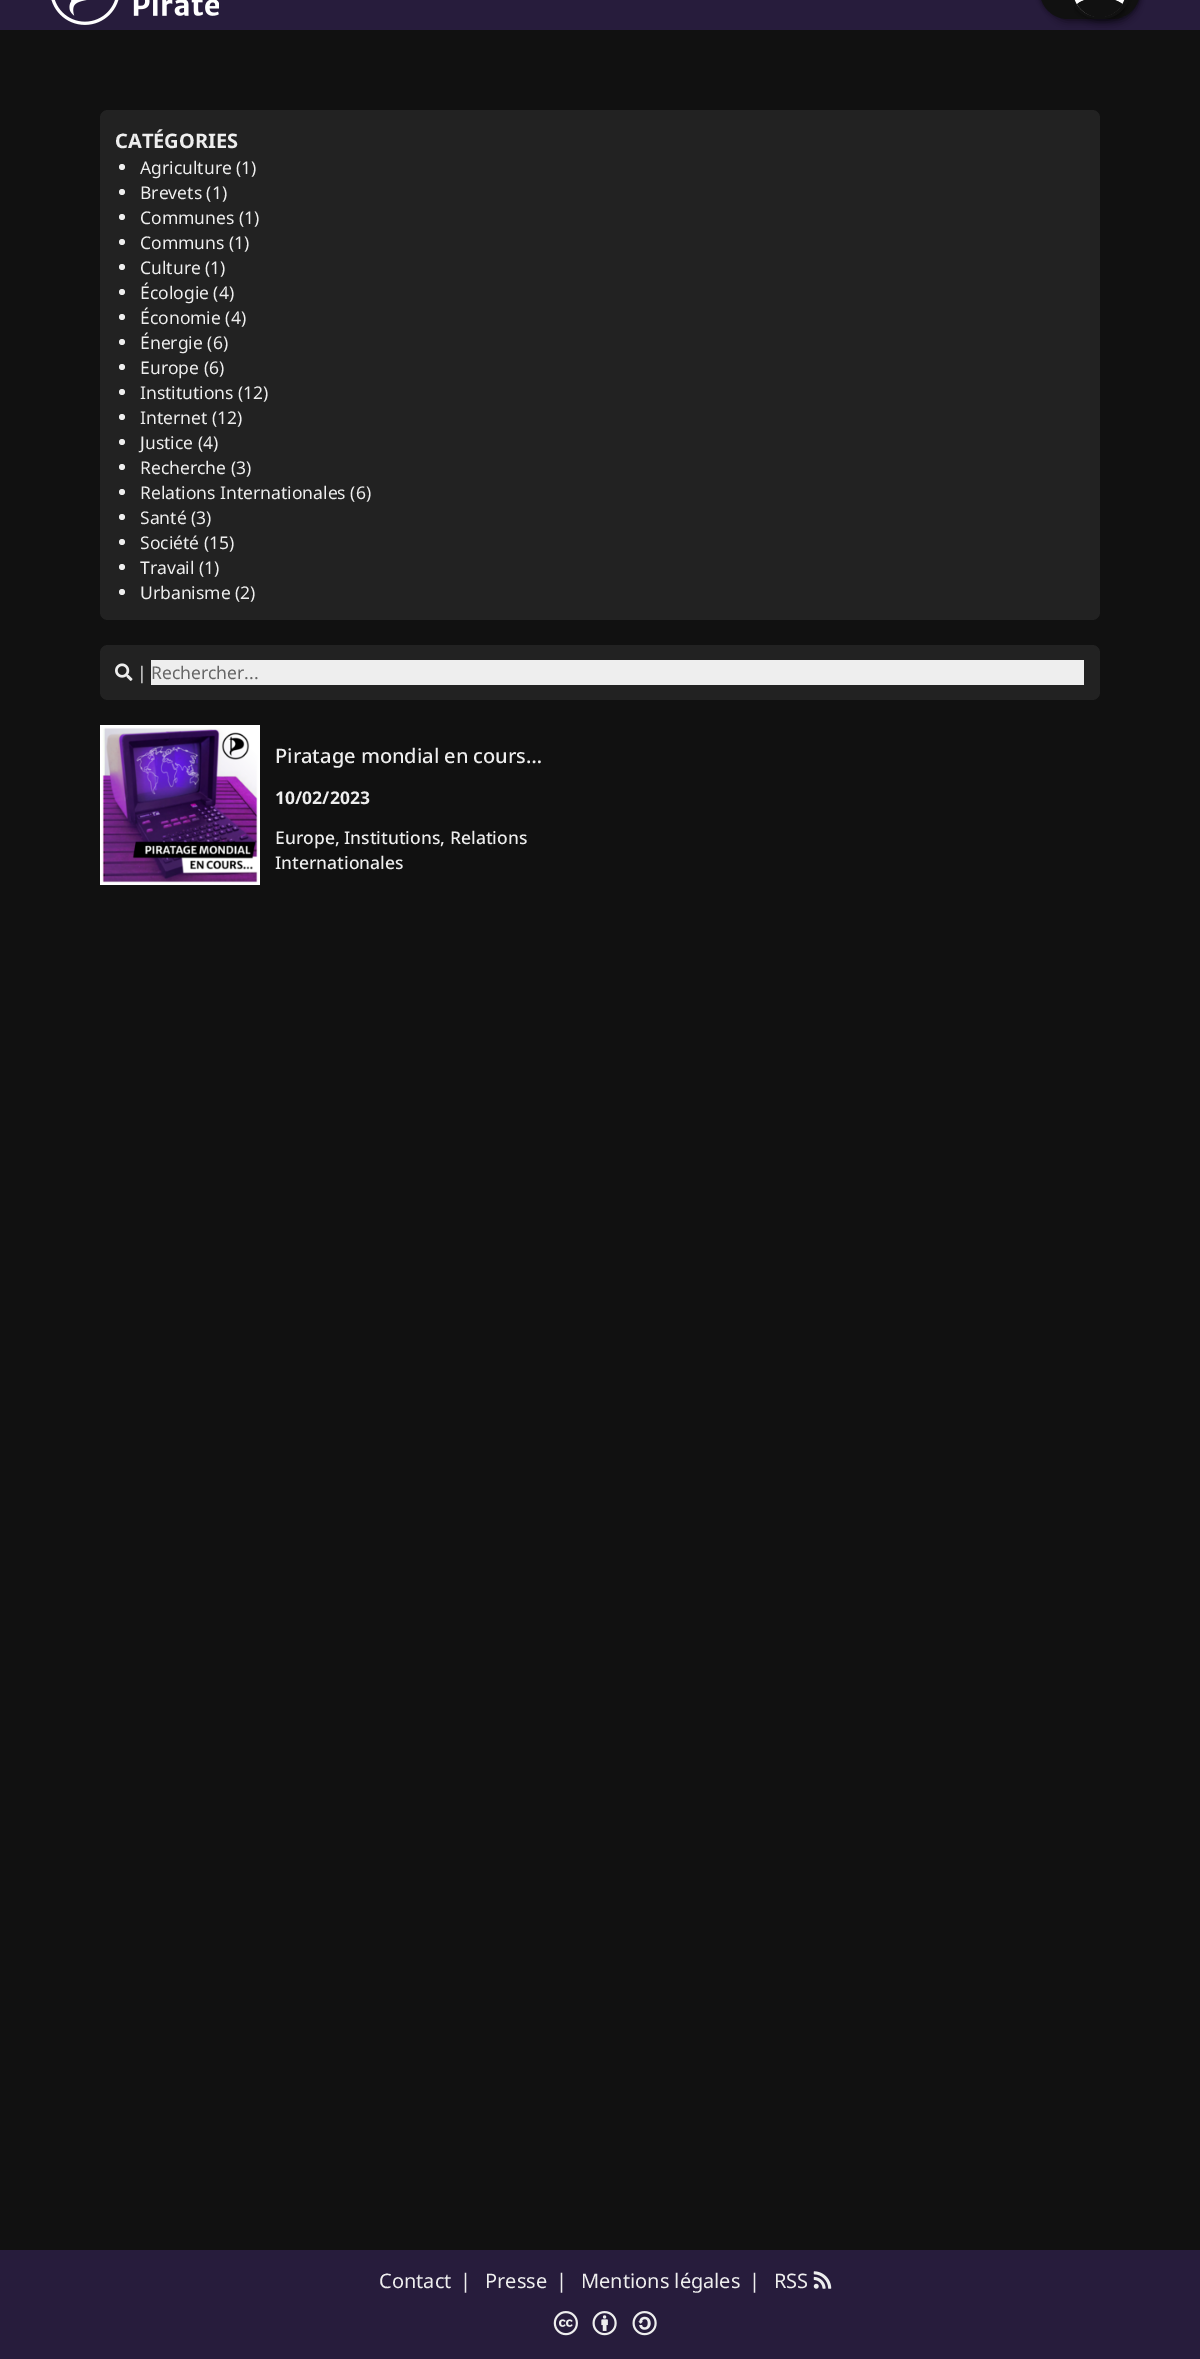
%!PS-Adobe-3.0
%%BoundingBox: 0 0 1200 2359
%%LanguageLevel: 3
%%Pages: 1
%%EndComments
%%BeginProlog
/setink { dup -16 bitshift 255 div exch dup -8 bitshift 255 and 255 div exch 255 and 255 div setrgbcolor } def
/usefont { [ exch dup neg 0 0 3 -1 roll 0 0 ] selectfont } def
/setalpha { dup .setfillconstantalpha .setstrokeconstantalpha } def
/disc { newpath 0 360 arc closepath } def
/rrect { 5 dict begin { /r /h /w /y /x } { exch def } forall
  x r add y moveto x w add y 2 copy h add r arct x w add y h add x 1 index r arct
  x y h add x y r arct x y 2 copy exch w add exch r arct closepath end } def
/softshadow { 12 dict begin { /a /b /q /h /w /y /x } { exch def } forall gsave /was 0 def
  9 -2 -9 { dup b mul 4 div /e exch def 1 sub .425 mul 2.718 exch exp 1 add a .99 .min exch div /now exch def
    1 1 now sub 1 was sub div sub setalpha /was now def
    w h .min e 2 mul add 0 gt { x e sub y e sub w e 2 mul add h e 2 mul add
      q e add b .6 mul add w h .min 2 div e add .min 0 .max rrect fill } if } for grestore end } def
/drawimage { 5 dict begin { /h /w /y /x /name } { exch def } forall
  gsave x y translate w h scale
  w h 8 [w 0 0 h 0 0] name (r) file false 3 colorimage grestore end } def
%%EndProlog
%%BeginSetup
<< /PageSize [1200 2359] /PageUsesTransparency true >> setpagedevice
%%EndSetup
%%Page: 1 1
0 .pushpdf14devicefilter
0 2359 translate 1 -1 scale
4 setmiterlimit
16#111111 setink
0 0 1200 2359 rectfill
16#271C3C setink
0 0 1200 30 rectfill
(img1.raw) 51 0 168 25 drawimage
16#000000 setink
1049 -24 87 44 22 4.5 0.7 softshadow
1040 -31 88 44 22 3 0.7 softshadow
1053 -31 87 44 22 3 0.7 softshadow
16#111111 setink
1040 -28 100 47 28 rrect fill
16#000000 setink
1079 -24 47 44 22 4.5 0.7 softshadow
16#111111 setink
1070 -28 60 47 28 rrect fill
(img2.raw) 1074 0 51 17 drawimage
16#222222 setink
100 110 1000 510 8 rrect fill
/NotoSans-Bold 20 usefont
16#EEEEEE setink
115 148 moveto (CATÉGORIES) show
122 167 3 disc fill
/NotoSans-Regular 17.5 usefont
140 174 moveto (Agriculture \(1\)) show
122 192 3 disc fill
140 199 moveto (Brevets \(1\)) show
122 217 3 disc fill
140 224 moveto (Communes \(1\)) show
122 242 3 disc fill
140 249 moveto (Communs \(1\)) show
122 267 3 disc fill
140 274 moveto (Culture \(1\)) show
122 292 3 disc fill
140 299 moveto (Écologie \(4\)) show
122 317 3 disc fill
140 324 moveto (Économie \(4\)) show
122 342 3 disc fill
140 349 moveto (Énergie \(6\)) show
122 367 3 disc fill
140 374 moveto (Europe \(6\)) show
122 392 3 disc fill
140 399 moveto (Institutions \(12\)) show
122 417 3 disc fill
140 424 moveto (Internet \(12\)) show
122 442 3 disc fill
140 449 moveto (Justice \(4\)) show
122 467 3 disc fill
140 474 moveto (Recherche \(3\)) show
122 492 3 disc fill
140 499 moveto (Relations Internationales \(6\)) show
122 517 3 disc fill
140 524 moveto (Santé \(3\)) show
122 542 3 disc fill
140 549 moveto (Société \(15\)) show
122 567 3 disc fill
140 574 moveto (Travail \(1\)) show
122 592 3 disc fill
140 599 moveto (Urbanisme \(2\)) show
16#222222 setink
100 645 1000 55 8 rrect fill
(img3.raw) 115 663 18 18 drawimage
16#EEEEEE setink
137 679 moveto (|) show
151 660 933 25 rectfill
16#666666 setink
151 679 moveto (Rechercher...) show
(img4.raw) 100 725 160 160 drawimage
/NotoSans-Medium 20 usefont
16#EEEEEE setink
275 763 moveto (Piratage mondial en cours…) show
/NotoSans-Bold 17.5 usefont
275 804 moveto (10/02/2023) show
/NotoSans-Medium 17.5 usefont
275 844 moveto (Europe, Institutions, Relations) show
275 869 moveto (Internationales) show
16#271C3C setink
0 2250 1200 109 rectfill
/NotoSans-Regular 20 usefont
16#EEEEEE setink
[
    [(Contact) 379 2288]
    [(|) 460 2288]
    [(Presse) 485 2288]
    [(|) 556 2288]
    [(Mentions légales) 581 2288]
    [(|) 749 2288]
    [(RSS) 774 2288]
] { aload pop moveto show } forall
(img5.raw) 813 2271 19 18 drawimage
(img6.raw) 553 2311 25 25 drawimage
(img7.raw) 592 2311 25 25 drawimage
(img8.raw) 632 2311 25 25 drawimage
.poppdf14devicefilter showpage
%%EOF
